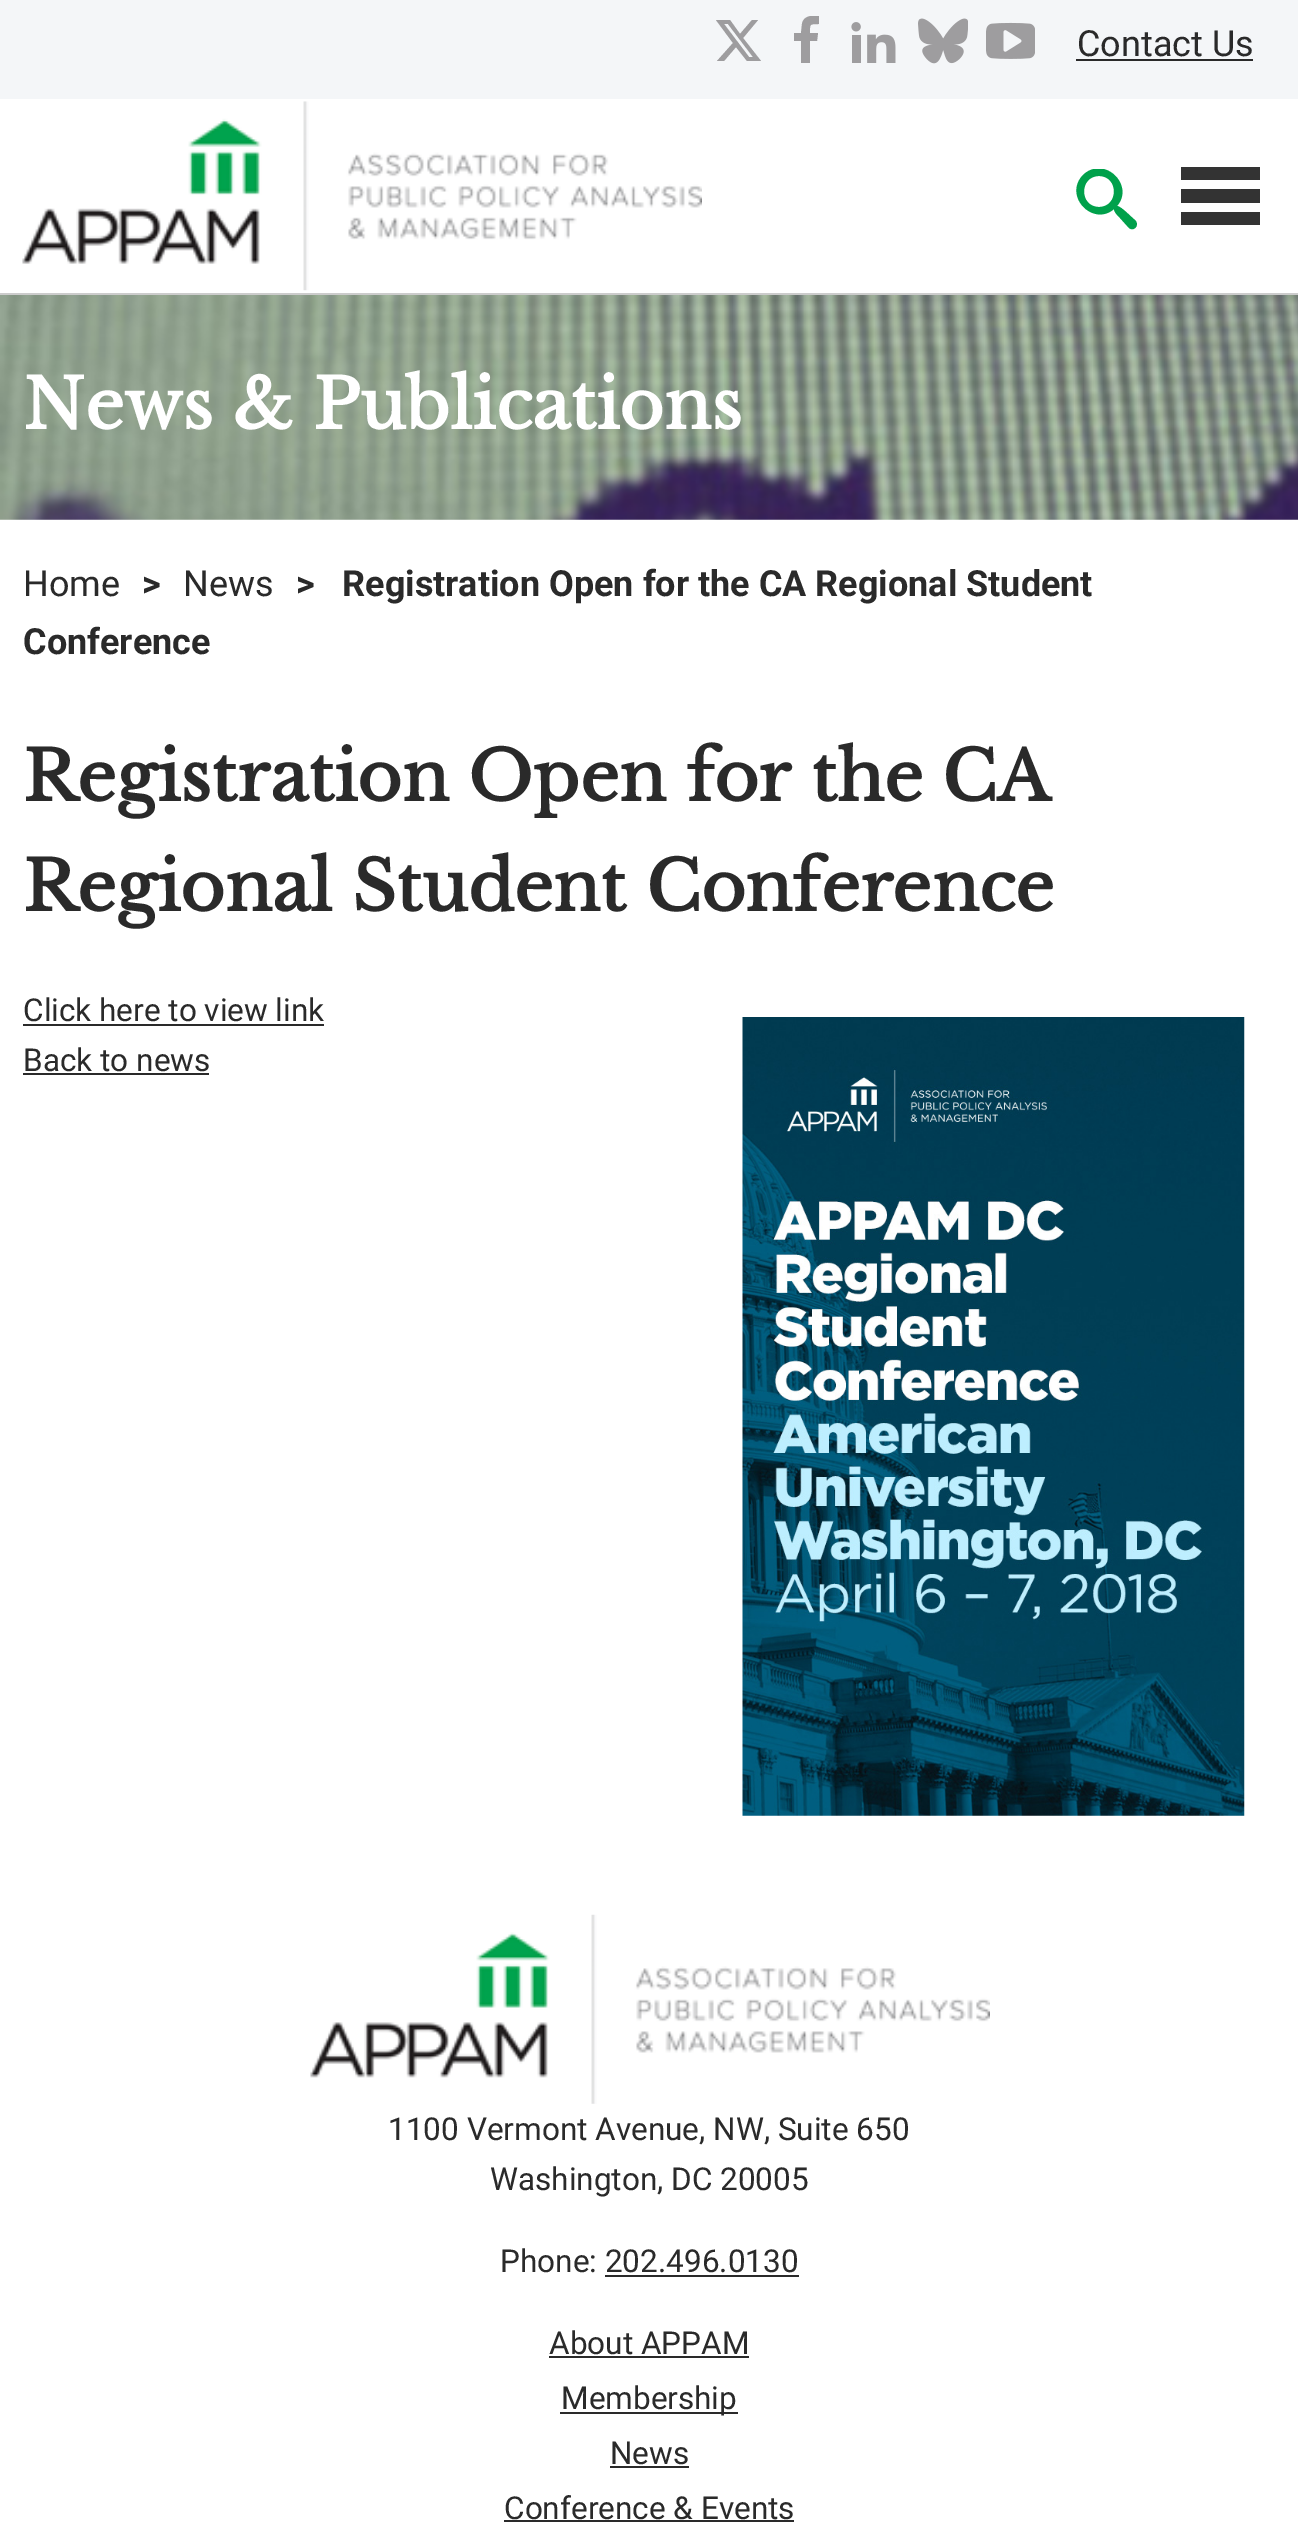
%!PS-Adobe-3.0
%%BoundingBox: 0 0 1298 2537
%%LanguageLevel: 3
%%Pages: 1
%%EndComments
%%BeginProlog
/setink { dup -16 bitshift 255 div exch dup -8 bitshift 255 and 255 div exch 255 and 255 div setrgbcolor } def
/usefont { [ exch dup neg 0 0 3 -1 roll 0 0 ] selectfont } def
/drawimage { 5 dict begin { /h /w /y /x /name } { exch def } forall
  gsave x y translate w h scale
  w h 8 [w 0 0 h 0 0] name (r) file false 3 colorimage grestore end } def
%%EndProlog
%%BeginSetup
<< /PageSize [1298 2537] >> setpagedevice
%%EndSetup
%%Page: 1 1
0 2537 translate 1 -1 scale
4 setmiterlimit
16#FFFFFF setink
0 0 1298 2537 rectfill
16#CCCCCC setink
0 293 1298 2 rectfill
16#F4F6F8 setink
0 0 1298 99 rectfill
16#9E9D9F setink
752 20 moveto 758 20 lineto 743 38 lineto 761 61 lineto 747 61 lineto 736 47 lineto 724 61 lineto 717 61 lineto 733 43 lineto 716 20 lineto 730 20 lineto 740 34 lineto closepath 749 57 moveto 753 57 lineto 728 24 lineto 724 24 lineto closepath fill
gsave
781 16 49 49 rectclip
819 16 moveto 819 24 lineto 809 24 810 24 810 33 curveto 818 33 lineto 817 41 lineto 810 41 lineto 810 63 lineto 801 63 lineto 801 41 lineto 794 41 lineto 794 33 lineto 801 33 lineto 802 24 lineto 803 16 812 15 819 16 curveto closepath fill
grestore
(img1.raw) 851 22 45 41 drawimage
(img2.raw) 918 18 50 46 drawimage
(img3.raw) 986 22 49 37 drawimage
/Roboto-Regular 36 usefont
16#2A2A2A setink
1077 56 moveto (Contact Us) show
1076 59 177 2 rectfill
gsave
1067 169 81 61 rectclip
16#00A14B setink
1135 220 moveto 1132 218 1121 206 1117 206 curveto 1135 185 1104 155 1083 175 curveto 1063 196 1093 227 1114 209 curveto 1114 212 1118 216 1120 218 curveto 1129 228 lineto 1134 232 1140 225 1135 220 curveto closepath 1099 207 moveto 1079 207 1079 176 1099 176 curveto 1119 176 1119 207 1099 207 curveto closepath fill
grestore
(img4.raw) 22 101 680 190 drawimage
[
    [1181 167 79 13 16#333333]
    [1181 189 79 14 16#333333]
    [1181 212 79 13 16#333333]
] { aload pop setink rectfill } forall
(img5.raw) 0 295 1298 225 drawimage
/LibreBaskerville-Bold 68.4 usefont
16#FFFFFF setink
23 429 moveto (News & Publications) show
/Roboto-Regular 36 usefont
16#2A2A2A setink
23 596 moveto (Home) show
/Roboto-Bold 36 usefont
142 596 moveto (>) show
/Roboto-Regular 36 usefont
183 596 moveto (News) show
/Roboto-Bold 36 usefont
[
    [(>) 296 596]
    [(Registration Open for the CA Regional Student) 342 596]
    [(Conference) 23 654]
] { aload pop moveto show } forall
/LibreBaskerville-Bold 68.4 usefont
23 801 moveto (Registration Open for the CA) show
23 911 moveto (Regional Student Conference) show
/Roboto-Regular 31.5 usefont
23 1021 moveto (Click here to view link) show
23 1024 301 2 rectfill
23 1071 moveto (Back to news) show
23 1073 186 2 rectfill
(img6.raw) 742 1017 503 799 drawimage
(img7.raw) 310 1914 680 190 drawimage
[
    [(1100 Vermont Avenue, NW, Suite 650) 388 2140]
    [(Washington, DC 20005) 490 2190]
    [(Phone: 202.496.0130) 500 2272]
] { aload pop moveto show } forall
605 2275 194 2 rectfill
549 2354 moveto (About APPAM) show
549 2356 200 2 rectfill
560 2412 178 2 rectfill
561 2409 moveto (Membership) show
610 2464 moveto (News) show
610 2466 79 2 rectfill
504 2519 moveto (Conference & Events) show
504 2520 290 2 rectfill
showpage
%%EOF
